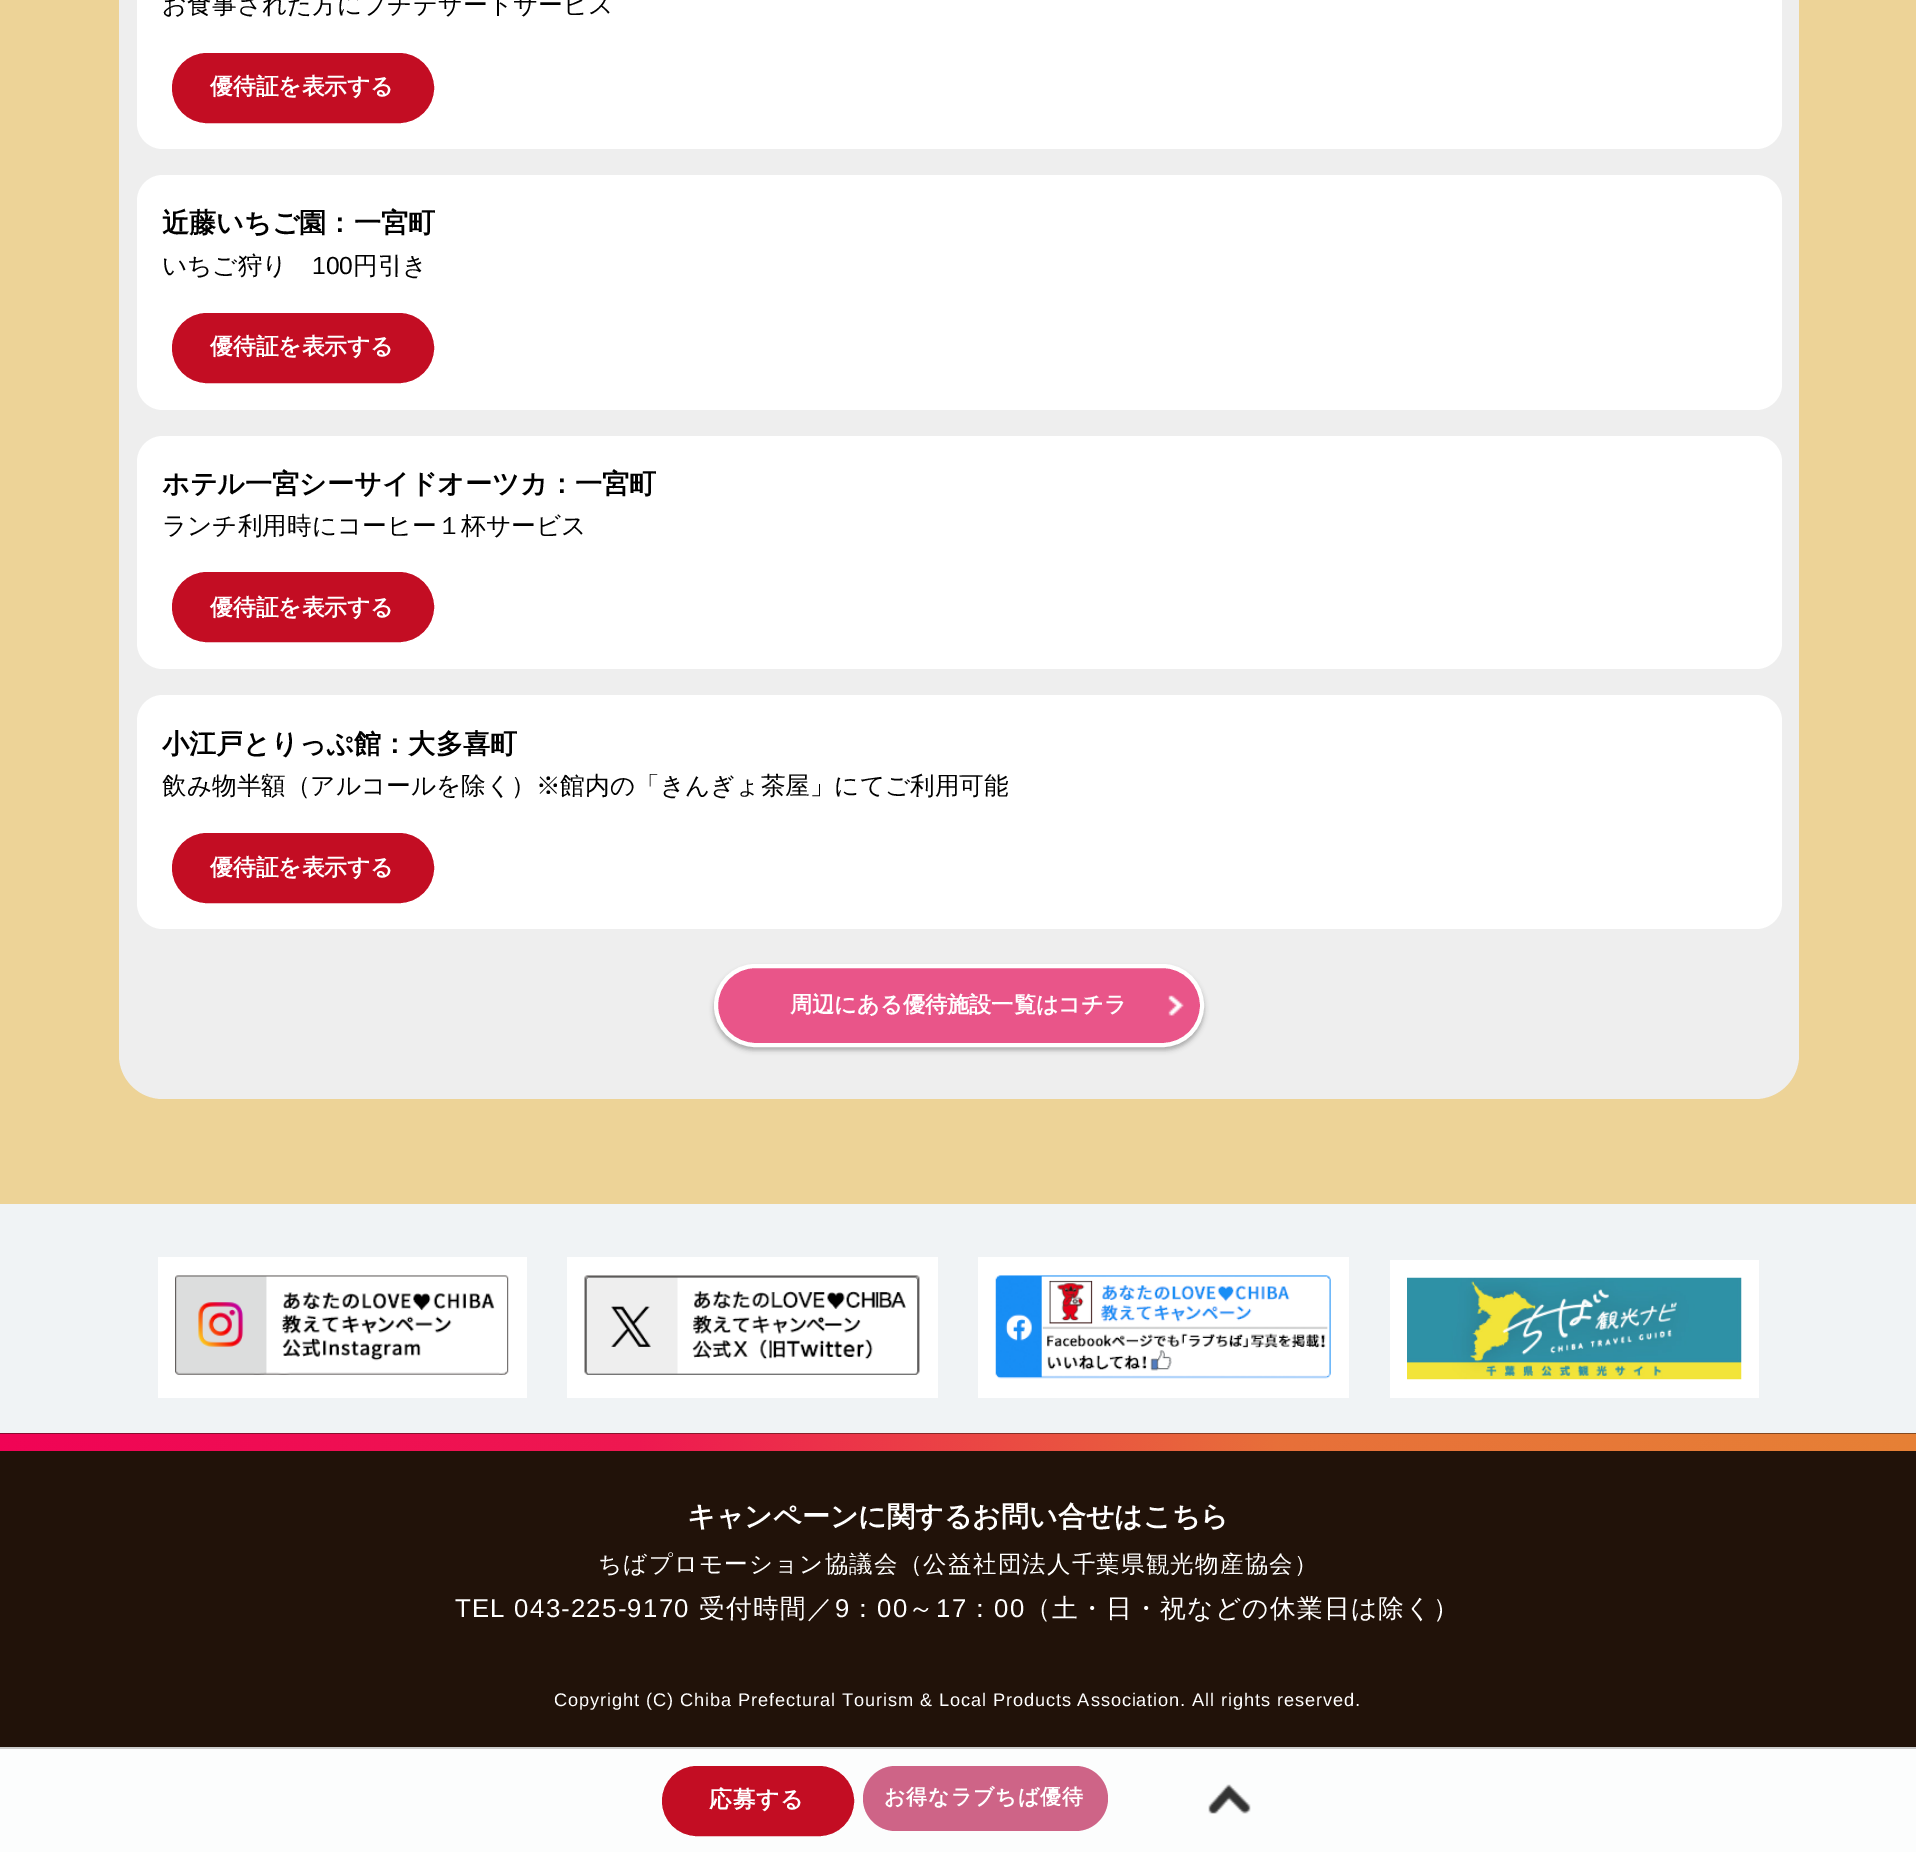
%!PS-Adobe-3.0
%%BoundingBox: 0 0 1916 1852
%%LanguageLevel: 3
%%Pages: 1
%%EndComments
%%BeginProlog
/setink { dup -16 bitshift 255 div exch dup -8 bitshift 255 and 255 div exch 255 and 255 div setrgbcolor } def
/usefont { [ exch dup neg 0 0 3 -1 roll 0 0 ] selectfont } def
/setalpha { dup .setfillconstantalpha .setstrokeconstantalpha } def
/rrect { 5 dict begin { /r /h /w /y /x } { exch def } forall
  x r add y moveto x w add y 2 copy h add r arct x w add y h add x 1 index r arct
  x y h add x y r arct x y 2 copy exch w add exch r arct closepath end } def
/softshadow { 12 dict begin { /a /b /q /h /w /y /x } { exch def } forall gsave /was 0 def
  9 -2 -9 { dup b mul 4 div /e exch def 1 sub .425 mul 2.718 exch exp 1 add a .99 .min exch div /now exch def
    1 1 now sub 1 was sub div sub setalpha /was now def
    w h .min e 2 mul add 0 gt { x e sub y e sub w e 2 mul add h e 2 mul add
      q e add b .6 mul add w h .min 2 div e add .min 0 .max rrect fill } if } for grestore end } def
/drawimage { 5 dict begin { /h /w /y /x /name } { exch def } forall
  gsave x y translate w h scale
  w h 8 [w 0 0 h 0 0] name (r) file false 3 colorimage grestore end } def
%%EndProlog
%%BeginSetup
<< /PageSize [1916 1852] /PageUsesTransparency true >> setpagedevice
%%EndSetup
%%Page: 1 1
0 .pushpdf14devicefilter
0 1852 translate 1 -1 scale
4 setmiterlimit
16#F0F3F5 setink
0 0 1916 1852 rectfill
16#EDD397 setink
0 0 1916 1204 rectfill
16#EEEEEE setink
119 -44 1680 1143 44 rrect fill
16#FFFFFF setink
137 -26 1645 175 26 rrect fill
/WenQuanYiZenHei-Medium 24.65 usefont
16#000000 setink
162 13 moveto (お食事された方にプチデザートサービス) show
16#C30D23 setink
173 54 260 68 34 rrect gsave fill grestore
2 setlinewidth
stroke
/WenQuanYiZenHei-Bold 22.75 usefont
16#FFFFFF setink
210 94 moveto (優待証を表示する) show
137 175 1645 235 26 rrect fill
/WenQuanYiZenHei-Bold 27.1 usefont
16#000000 setink
162 232 moveto (近藤いちご園：一宮町) show
/WenQuanYiZenHei-Medium 24.65 usefont
162 274 moveto (いちご狩り) show
/LiberationSans-Regular 24.65 usefont
312 274 moveto (100) show
/WenQuanYiZenHei-Medium 24.65 usefont
353 274 moveto (円引き) show
16#C30D23 setink
173 314 260 68 34 rrect gsave fill grestore
stroke
/WenQuanYiZenHei-Bold 22.75 usefont
16#FFFFFF setink
210 354 moveto (優待証を表示する) show
137 436 1645 233 26 rrect fill
/WenQuanYiZenHei-Bold 27.1 usefont
16#000000 setink
162 493 moveto (ホテル一宮シーサイドオーツカ：一宮町) show
/WenQuanYiZenHei-Medium 24.65 usefont
162 534 moveto (ランチ利用時にコーヒー１杯サービス) show
16#C30D23 setink
173 573 260 68 34 rrect gsave fill grestore
stroke
/WenQuanYiZenHei-Bold 22.75 usefont
16#FFFFFF setink
210 615 moveto (優待証を表示する) show
137 695 1645 234 26 rrect fill
/WenQuanYiZenHei-Bold 27.1 usefont
16#000000 setink
162 753 moveto (小江戸とりっぷ館：大多喜町) show
/WenQuanYiZenHei-Medium 24.65 usefont
162 794 moveto (飲み物半額（アルコールを除く）※館内の「きんぎょ茶屋」にてご利用可能) show
16#C30D23 setink
173 834 260 68 34 rrect gsave fill grestore
stroke
/WenQuanYiZenHei-Bold 22.75 usefont
16#FFFFFF setink
210 875 moveto (優待証を表示する) show
16#000000 setink
714 968 490 82 41 2.5 0.3 softshadow
16#E95589 setink
716 966 486 79 39.5 rrect gsave fill grestore
16#FFFFFF setink
4 setlinewidth
stroke
(img1.raw) 1168 995 16 21 drawimage
/WenQuanYiZenHei-Bold 22.2 usefont
790 1012 moveto (周辺にある優待施設一覧はコチラ) show
16#FCFDFD setink
0 1749 1916 103 rectfill
16#FFFFFF setink
158 1257 369 141 rectfill
(img2.raw) 175 1275 334 100 drawimage
567 1257 371 141 rectfill
(img3.raw) 584 1275 336 100 drawimage
978 1257 371 141 rectfill
(img4.raw) 995 1275 336 104 drawimage
1390 1260 369 138 rectfill
(img5.raw) 1407 1277 335 103 drawimage
16#211209 setink
0 1433 1916 314 rectfill
(img6.raw) 0 1433 1916 18 drawimage
/WenQuanYiZenHei-Bold 28 usefont
16#FFFFFF setink
687 1526 moveto (キャンペーンに関するお問い合せはこちら) show
/WenQuanYiZenHei-Medium 23.5 usefont
598 1572 moveto 1.2 0 (ちばプロモーション協議会（公益社団法人千葉県観光物産協会）) ashow
/LiberationSans-Regular 25.75 usefont
455 1617 moveto 1.25 0 (TEL 043-225-9170) ashow
/WenQuanYiZenHei-Medium 25.75 usefont
699 1617 moveto 1.25 0 (受付時間／) ashow
/LiberationSans-Regular 25.75 usefont
835 1617 moveto 1.25 0 (9) ashow
/WenQuanYiZenHei-Medium 25.75 usefont
850 1617 moveto 1.25 0 (：) ashow
/LiberationSans-Regular 25.75 usefont
877 1617 moveto 1.25 0 (00) ashow
/WenQuanYiZenHei-Medium 25.75 usefont
908 1617 moveto 1.25 0 (～) ashow
/LiberationSans-Regular 25.75 usefont
936 1617 moveto 1.25 0 (17) ashow
/WenQuanYiZenHei-Medium 25.75 usefont
967 1617 moveto 1.25 0 (：) ashow
/LiberationSans-Regular 25.75 usefont
994 1617 moveto 1.25 0 (00) ashow
/WenQuanYiZenHei-Medium 25.75 usefont
1025 1617 moveto 1.25 0 (（土・日・祝などの休業日は除く）) ashow
/LiberationSans-Regular 18.2 usefont
554 1706 moveto 0.9 0 (Copyright \(C\) Chiba Prefectural Tourism & Local Products Association. All rights reserved.) ashow
16#CCCCCC setink
0 1747 1916 2 rectfill
16#C30D23 setink
663 1767 190 68 34 rrect gsave fill grestore
2 setlinewidth
stroke
/WenQuanYiZenHei-Bold 22.75 usefont
16#FFFFFF setink
709 1807 moveto 0.9 0 (応募する) ashow
16#CE6487 setink
863 1766 245 65 32.5 rrect fill
/WenQuanYiZenHei-Bold 21 usefont
16#FFFFFF setink
884 1804 moveto 0.9 0 (お得なラブちば優待) ashow
(img7.raw) 1208 1784 43 30 drawimage
.poppdf14devicefilter showpage
%%EOF
